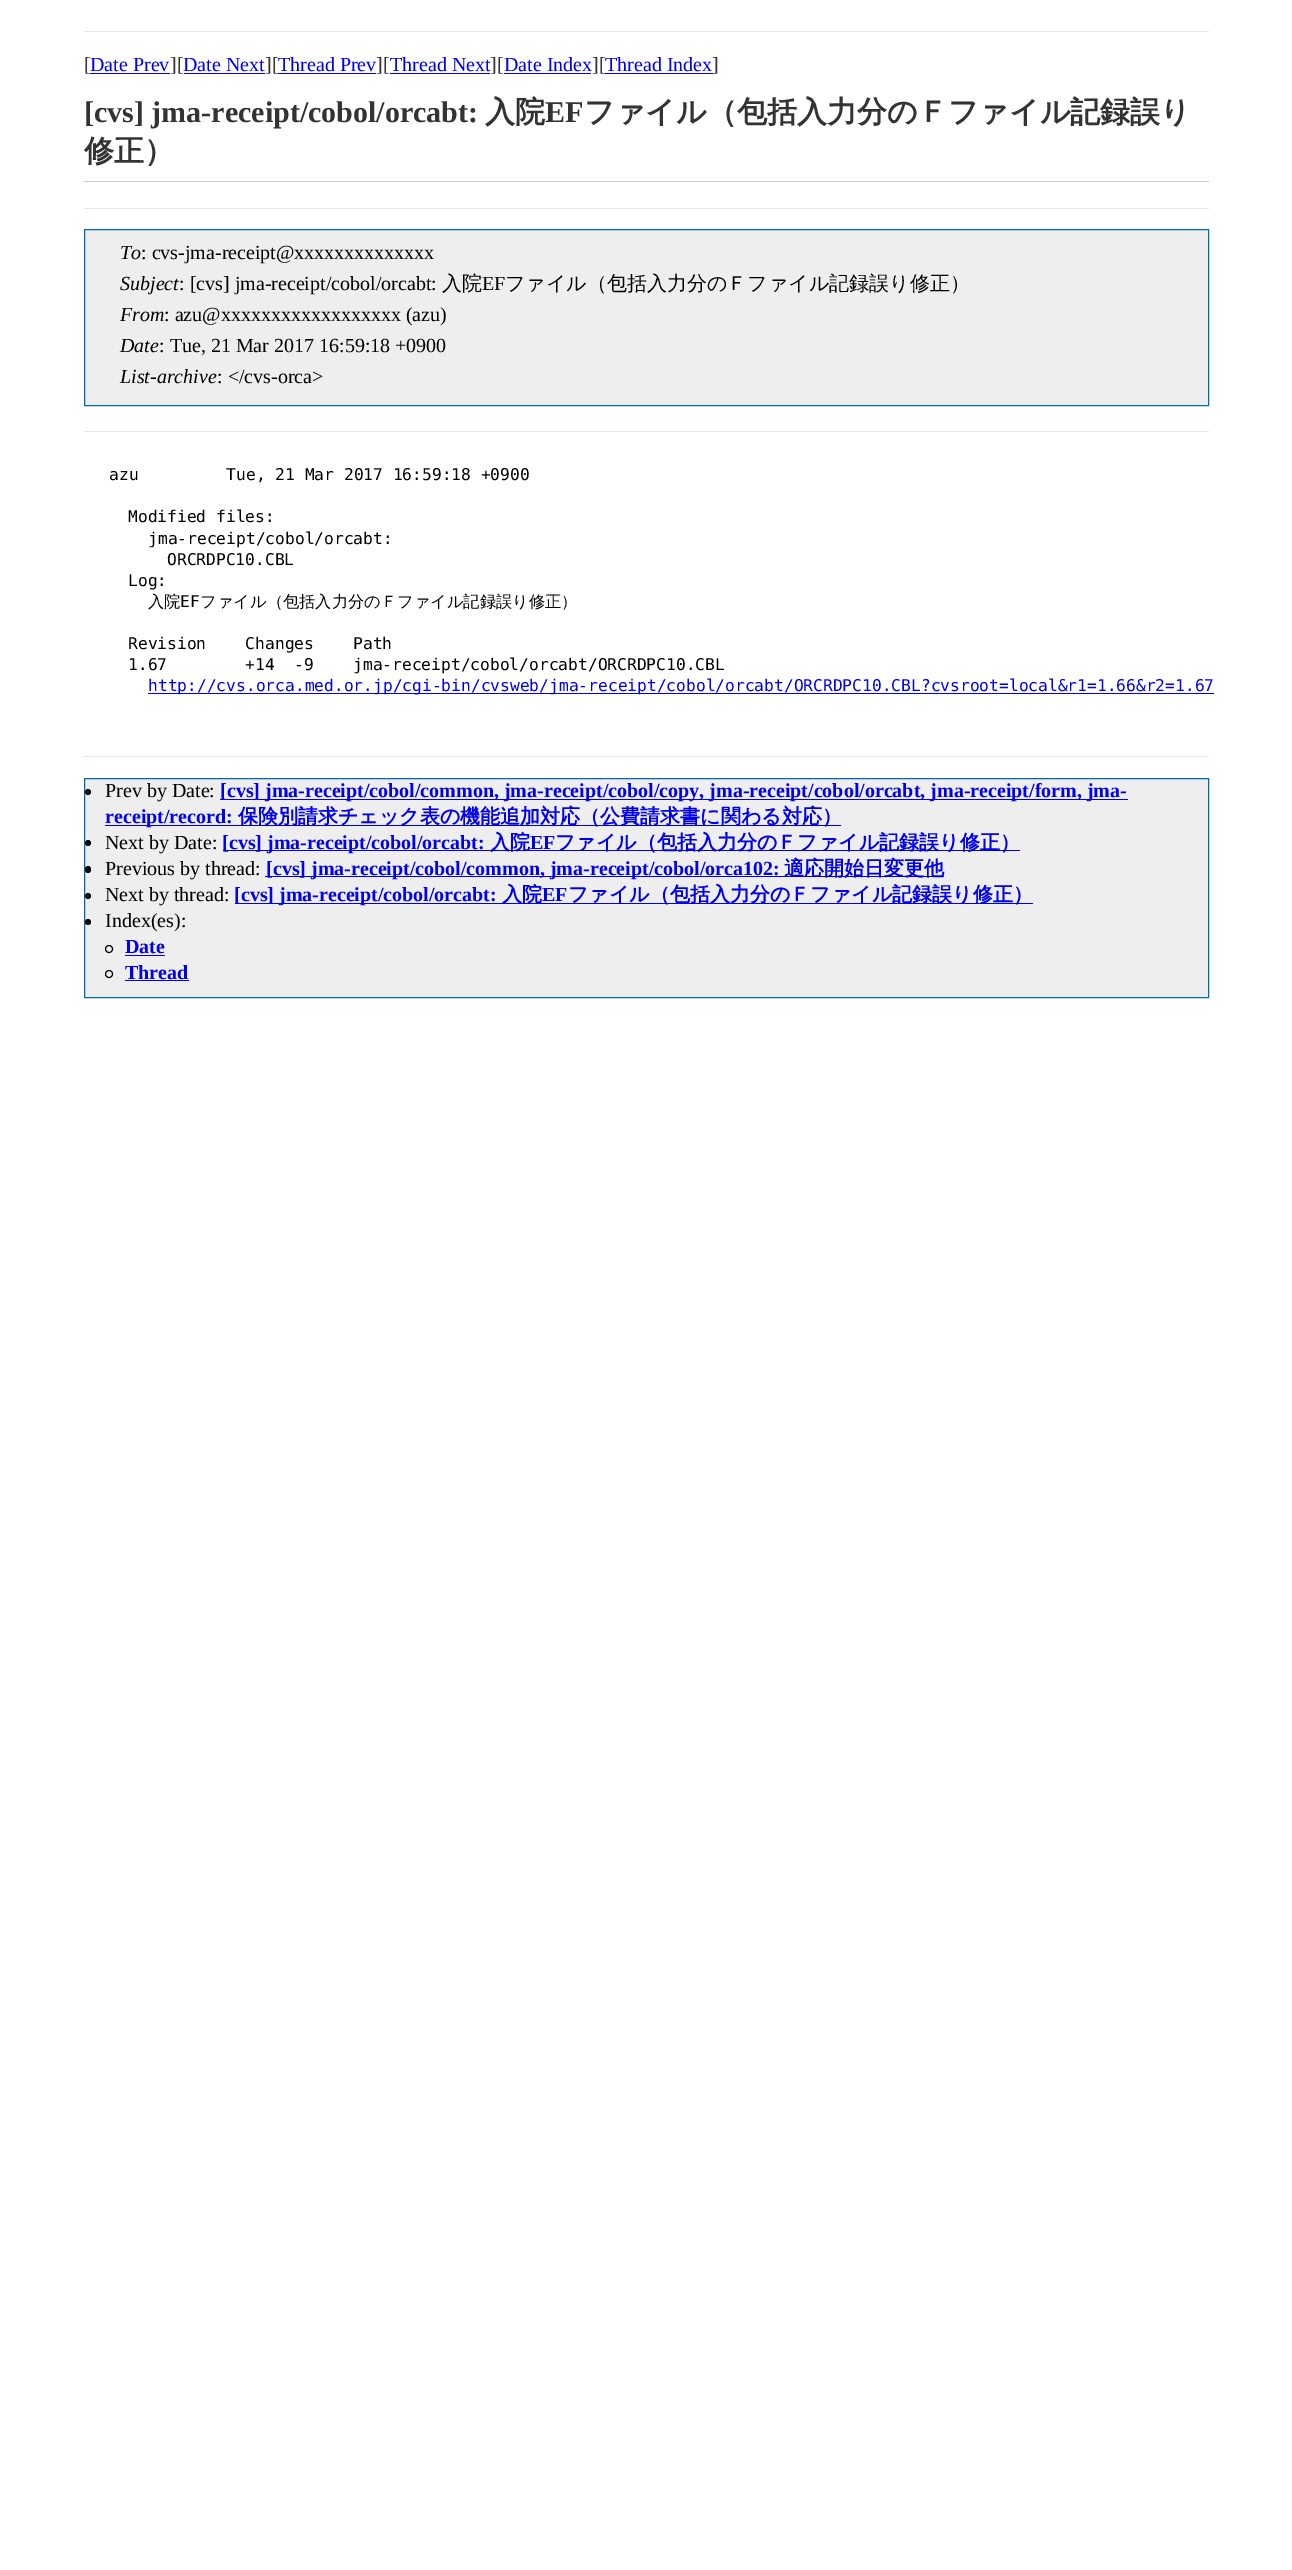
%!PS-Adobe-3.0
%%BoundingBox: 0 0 1292 2570
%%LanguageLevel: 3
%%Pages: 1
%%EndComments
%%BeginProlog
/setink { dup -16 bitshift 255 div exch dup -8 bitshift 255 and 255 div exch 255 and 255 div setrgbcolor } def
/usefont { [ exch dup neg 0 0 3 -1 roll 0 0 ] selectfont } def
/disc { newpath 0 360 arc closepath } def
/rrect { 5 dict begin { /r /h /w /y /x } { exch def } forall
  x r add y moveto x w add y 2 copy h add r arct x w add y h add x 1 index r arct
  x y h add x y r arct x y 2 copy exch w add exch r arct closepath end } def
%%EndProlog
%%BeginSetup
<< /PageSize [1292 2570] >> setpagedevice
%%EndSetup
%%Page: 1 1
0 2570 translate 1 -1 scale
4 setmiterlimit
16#FFFFFF setink
0 0 1292 2570 rectfill
16#E6E6E6 setink
84 31 1125 1 rectfill
/LiberationSerif-Regular 20 usefont
16#333333 setink
84 71 moveto ([) show
16#0000EE setink
90 71 moveto (Date Prev) show
90 73 80 1 rectfill
16#333333 setink
170 71 moveto (][) show
16#0000EE setink
183 71 moveto (Date Next) show
184 73 81 1 rectfill
16#333333 setink
265 71 moveto (][) show
16#0000EE setink
278 71 moveto (Thread Prev) show
278 73 98 1 rectfill
16#333333 setink
376 71 moveto (][) show
16#0000EE setink
390 71 moveto (Thread Next) show
390 73 100 1 rectfill
16#333333 setink
490 71 moveto (][) show
16#0000EE setink
504 71 moveto (Date Index) show
504 73 87 1 rectfill
16#333333 setink
592 71 moveto (][) show
16#0000EE setink
605 71 moveto (Thread Index) show
605 73 108 1 rectfill
16#333333 setink
712 71 moveto (]) show
16#CCCCCC setink
84 181 1125 1 rectfill
/LiberationSerif-Bold 30 usefont
16#333333 setink
84 122 moveto ([cvs] jma-receipt/cobol/orcabt:) show
/WenQuanYiZenHei-Bold 30 usefont
485 122 moveto (入院) show
/LiberationSerif-Bold 30 usefont
545 122 moveto (EF) show
/WenQuanYiZenHei-Bold 30 usefont
584 122 moveto (ファイル（包括入力分のＦファイル記録誤り) show
84 161 moveto (修正）) show
16#E6E6E6 setink
84 208 1125 1 rectfill
16#EEEEEE setink
84.5 229.5 moveto 1208.5 229.5 lineto 1208.5 405.5 lineto 84.5 405.5 lineto closepath gsave fill grestore
16#006AB0 setink
stroke
/LiberationSerif-Italic 20 usefont
16#000000 setink
120 259 moveto (To) show
/LiberationSerif-Regular 20 usefont
141 259 moveto (: cvs-jma-receipt@xxxxxxxxxxxxxx) show
/LiberationSerif-Italic 20 usefont
120 290 moveto (Subject) show
/LiberationSerif-Regular 20 usefont
179 290 moveto (: [cvs] jma-receipt/cobol/orcabt:) show
/WenQuanYiZenHei-Medium 20 usefont
442 290 moveto (入院) show
/LiberationSerif-Regular 20 usefont
482 290 moveto (EF) show
/WenQuanYiZenHei-Medium 20 usefont
505 290 moveto (ファイル（包括入力分のＦファイル記録誤り修正）) show
/LiberationSerif-Italic 20 usefont
120 321 moveto (From) show
/LiberationSerif-Regular 20 usefont
164 321 moveto (: azu@xxxxxxxxxxxxxxxxxx \(azu\)) show
/LiberationSerif-Italic 20 usefont
120 352 moveto (Date) show
/LiberationSerif-Regular 20 usefont
159 352 moveto (: Tue, 21 Mar 2017 16:59:18 +0900) show
/LiberationSerif-Italic 20 usefont
120 383 moveto (List-archive) show
/LiberationSerif-Regular 20 usefont
217 383 moveto (: </cvs-orca>) show
16#E6E6E6 setink
84 431 1125 1 rectfill
/DejaVuSansMono-Regular 16.25 usefont
16#000000 setink
[
    [(azu         Tue, 21 Mar 2017 16:59:18 +0900) 109 480]
    [(Modified files:) 128 522]
    [(jma-receipt/cobol/orcabt:) 148 544]
    [(ORCRDPC10.CBL) 167 565]
    [(Log:) 128 586]
] { aload pop moveto show } forall
/WenQuanYiZenHei-Medium 16.25 usefont
148 607 moveto (入院) show
/DejaVuSansMono-Regular 16.25 usefont
180 607 moveto (EF) show
/WenQuanYiZenHei-Medium 16.25 usefont
200 607 moveto (ファイル（包括入力分のＦファイル記録誤り修正）) show
/DejaVuSansMono-Regular 16.25 usefont
128 649 moveto (Revision    Changes    Path) show
128 670 moveto (1.67        +14  -9    jma-receipt/cobol/orcabt/ORCRDPC10.CBL) show
16#0000EE setink
148 693 1066 1 rectfill
148 691 moveto (http://cvs.orca.med.or.jp/cgi-bin/cvsweb/jma-receipt/cobol/orcabt/ORCRDPC10.CBL?cvsroot=local&r1=1.66&r2=1.67) show
16#E6E6E6 setink
84 756 1125 1 rectfill
16#EEEEEE setink
84.5 778.5 moveto 1208.5 778.5 lineto 1208.5 997.5 lineto 84.5 997.5 lineto closepath gsave fill grestore
16#006AB0 setink
stroke
16#000000 setink
88 792 3 disc fill
/LiberationSerif-Regular 20 usefont
105 797 moveto (Prev by Date:) show
16#0000EE setink
220 799 908 1 rectfill
/LiberationSerif-Bold 20 usefont
220 797 moveto ([cvs] jma-receipt/cobol/common, jma-receipt/cobol/copy, jma-receipt/cobol/orcabt, jma-receipt/form, jma-) show
105 825 736 1 rectfill
105 823 moveto (receipt/record:) show
/WenQuanYiZenHei-Bold 20 usefont
238 823 moveto (保険別請求チェック表の機能追加対応（公費請求書に関わる対応）) show
16#000000 setink
88 843 3 disc fill
/LiberationSerif-Regular 20 usefont
105 849 moveto (Next by Date:) show
16#0000EE setink
223 850 797 1 rectfill
/LiberationSerif-Bold 20 usefont
222 849 moveto ([cvs] jma-receipt/cobol/orcabt:) show
/WenQuanYiZenHei-Bold 20 usefont
490 849 moveto (入院) show
/LiberationSerif-Bold 20 usefont
530 849 moveto (EF) show
/WenQuanYiZenHei-Bold 20 usefont
555 849 moveto (ファイル（包括入力分のＦファイル記録誤り修正）) show
16#000000 setink
85 866 6 7 3 rrect fill
/LiberationSerif-Regular 20 usefont
105 875 moveto (Previous by thread:) show
16#0000EE setink
265 876 679 1 rectfill
/LiberationSerif-Bold 20 usefont
266 875 moveto ([cvs] jma-receipt/cobol/common, jma-receipt/cobol/orca102:) show
/WenQuanYiZenHei-Bold 20 usefont
784 875 moveto (適応開始日変更他) show
16#000000 setink
88 896 3 disc fill
/LiberationSerif-Regular 20 usefont
105 901 moveto (Next by thread:) show
16#0000EE setink
235 903 798 1 rectfill
/LiberationSerif-Bold 20 usefont
234 901 moveto ([cvs] jma-receipt/cobol/orcabt:) show
/WenQuanYiZenHei-Bold 20 usefont
502 901 moveto (入院) show
/LiberationSerif-Bold 20 usefont
542 901 moveto (EF) show
/WenQuanYiZenHei-Bold 20 usefont
568 901 moveto (ファイル（包括入力分のＦファイル記録誤り修正）) show
16#000000 setink
88 922 3 disc fill
/LiberationSerif-Regular 20 usefont
105 927 moveto (Index\(es\):) show
109 949 3.5 disc stroke
/LiberationSerif-Bold 20 usefont
16#0000EE setink
125 953 moveto (Date) show
125 955 40 1 rectfill
16#000000 setink
109 974 3.5 disc stroke
16#0000EE setink
125 979 moveto (Thread) show
125 980 64 1 rectfill
showpage
%%EOF
